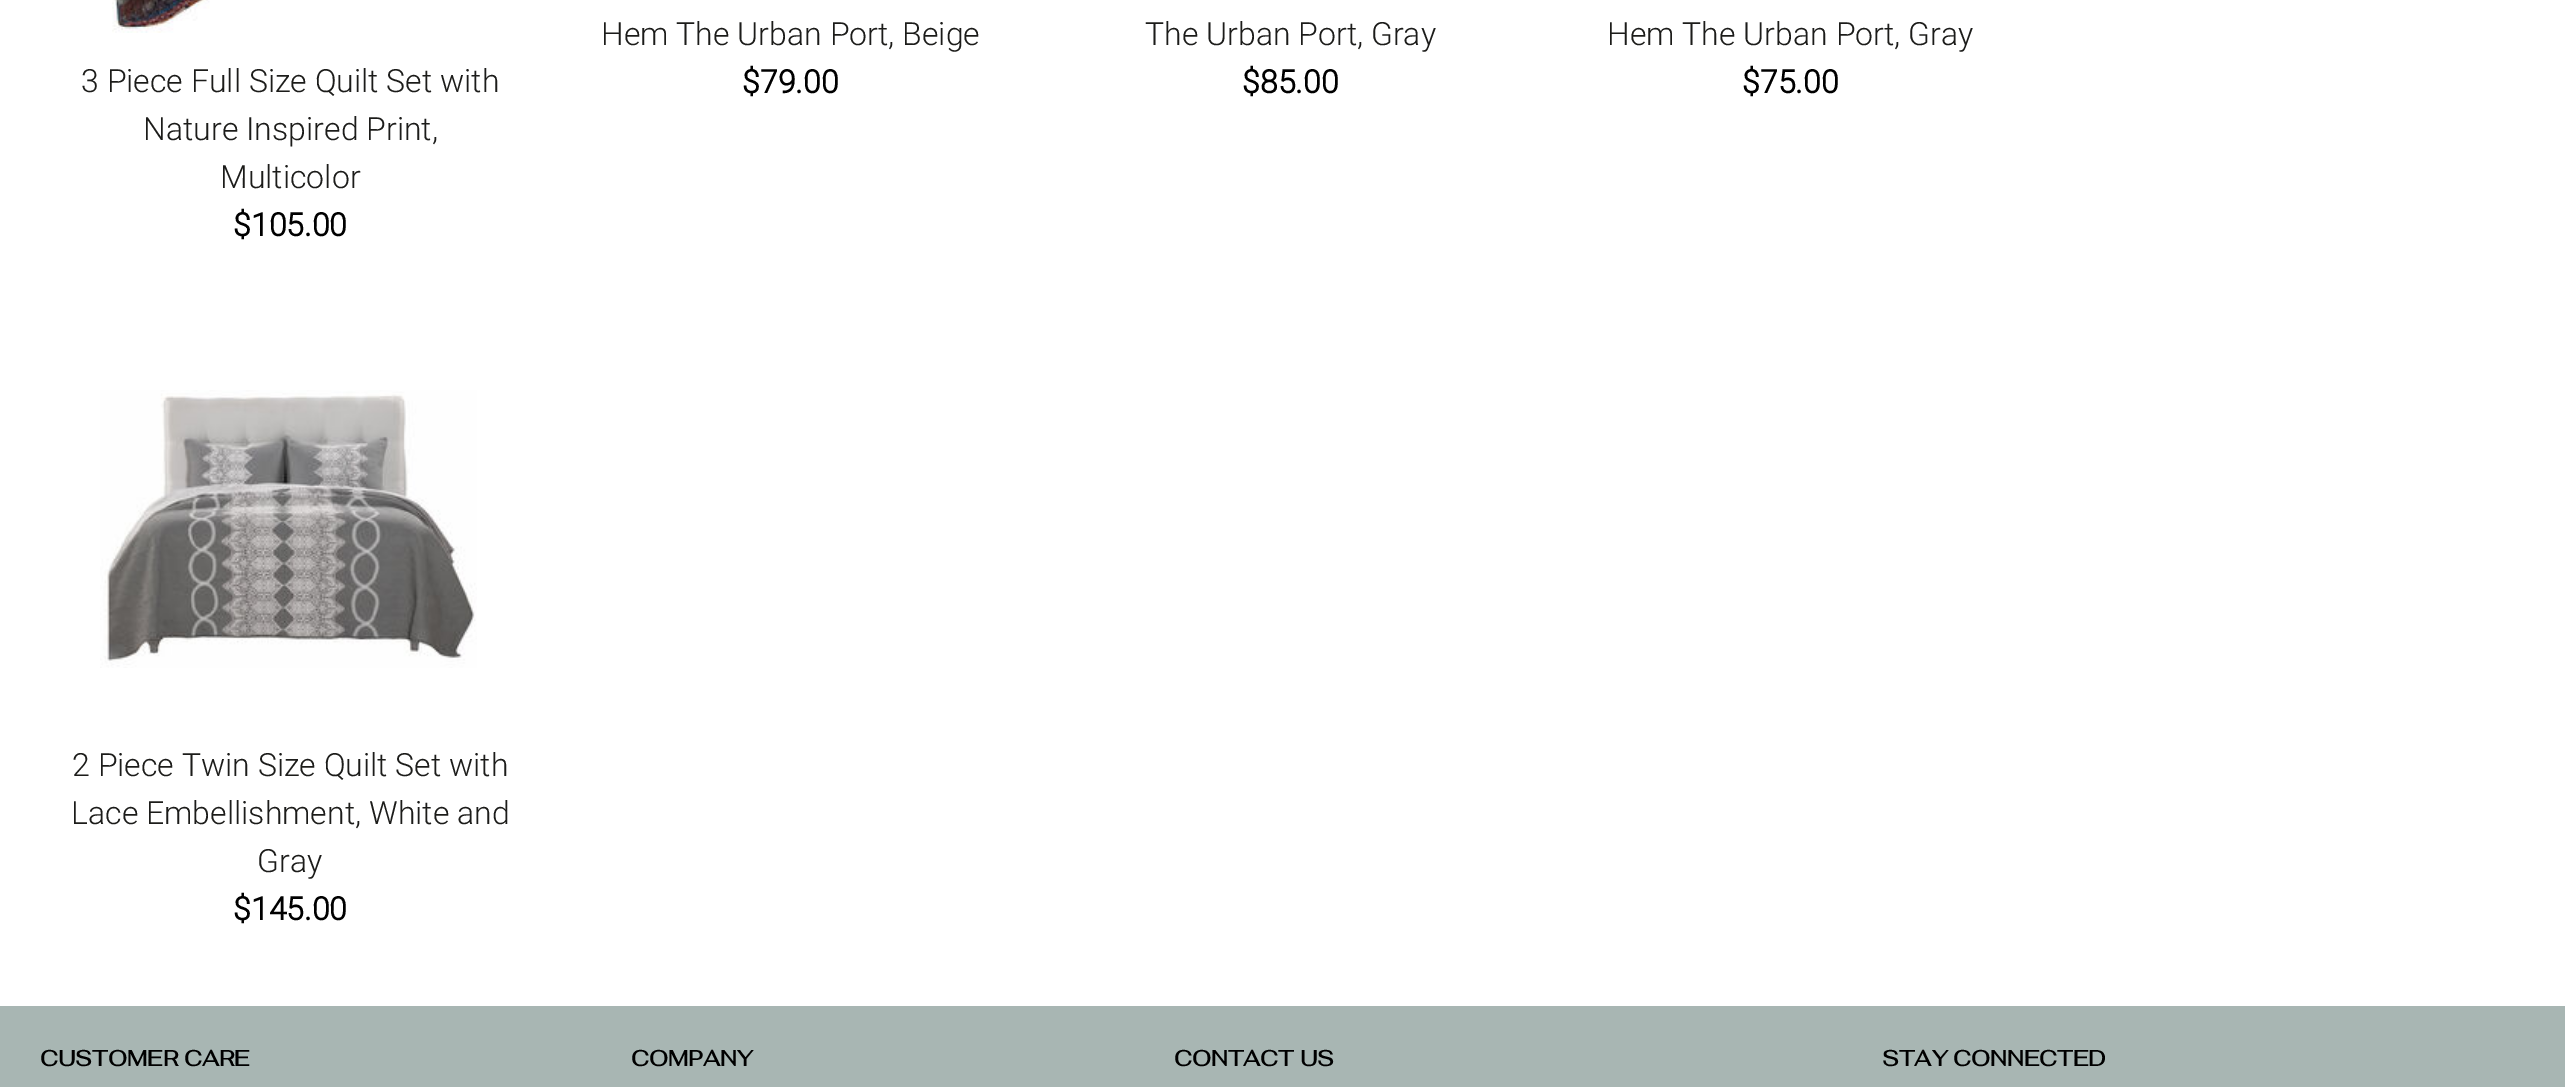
%!PS-Adobe-3.0
%%BoundingBox: 0 0 2565 1087
%%LanguageLevel: 3
%%Pages: 1
%%EndComments
%%BeginProlog
/setink { dup -16 bitshift 255 div exch dup -8 bitshift 255 and 255 div exch 255 and 255 div setrgbcolor } def
/usefont { [ exch dup neg 0 0 3 -1 roll 0 0 ] selectfont } def
/drawimage { 5 dict begin { /h /w /y /x /name } { exch def } forall
  gsave x y translate w h scale
  w h 8 [w 0 0 h 0 0] name (r) file false 3 colorimage grestore end } def
%%EndProlog
%%BeginSetup
<< /PageSize [2565 1087] >> setpagedevice
%%EndSetup
%%Page: 1 1
0 1087 translate 1 -1 scale
4 setmiterlimit
16#FFFFFF setink
0 0 2565 1087 rectfill
/Roboto-Light 32 usefont
16#1C1C1A setink
601 45 moveto (Hem The Urban Port, Beige) show
/Roboto-Bold 32 usefont
16#000000 setink
742 93 moveto ($79.00) show
/Roboto-Light 32 usefont
16#1C1C1A setink
1145 45 moveto (The Urban Port, Gray) show
/Roboto-Bold 32 usefont
16#000000 setink
1242 93 moveto ($85.00) show
/Roboto-Light 32 usefont
16#1C1C1A setink
1607 45 moveto (Hem The Urban Port, Gray) show
/Roboto-Bold 32 usefont
16#000000 setink
1742 93 moveto ($75.00) show
(img1.raw) 112 0 98 33 drawimage
/Roboto-Light 32 usefont
16#1C1C1A setink
[
    [(3 Piece Full Size Quilt Set with) 81 92]
    [(Nature Inspired Print,) 143 140]
    [(Multicolor) 220 188]
] { aload pop moveto show } forall
/Roboto-Bold 32 usefont
16#000000 setink
233 236 moveto ($105.00) show
(img2.raw) 100 390 377 278 drawimage
/Roboto-Light 32 usefont
16#1C1C1A setink
[
    [(2 Piece Twin Size Quilt Set with) 72 776]
    [(Lace Embellishment, White and) 71 824]
    [(Gray) 257 872]
] { aload pop moveto show } forall
/Roboto-Bold 32 usefont
16#000000 setink
233 920 moveto ($145.00) show
16#A8B6B3 setink
0 1006 2565 81 rectfill
/Fahkwang-Bold 22 usefont
16#000000 setink
[
    [(CUSTOMER CARE) 40 1066]
    [(COMPANY) 631 1066]
    [(CONTACT US) 1174 1066]
    [(STAY CONNECTED) 1882 1066]
] { aload pop moveto show } forall
showpage
%%EOF
